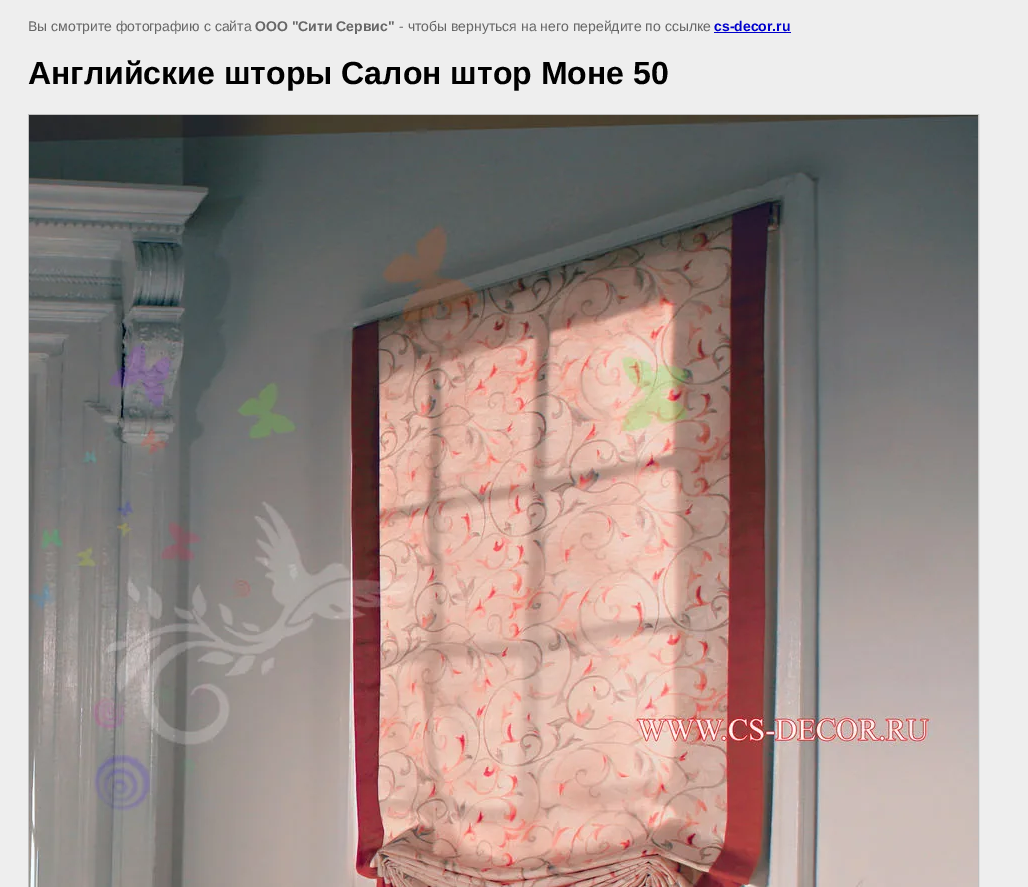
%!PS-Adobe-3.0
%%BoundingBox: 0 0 1028 887
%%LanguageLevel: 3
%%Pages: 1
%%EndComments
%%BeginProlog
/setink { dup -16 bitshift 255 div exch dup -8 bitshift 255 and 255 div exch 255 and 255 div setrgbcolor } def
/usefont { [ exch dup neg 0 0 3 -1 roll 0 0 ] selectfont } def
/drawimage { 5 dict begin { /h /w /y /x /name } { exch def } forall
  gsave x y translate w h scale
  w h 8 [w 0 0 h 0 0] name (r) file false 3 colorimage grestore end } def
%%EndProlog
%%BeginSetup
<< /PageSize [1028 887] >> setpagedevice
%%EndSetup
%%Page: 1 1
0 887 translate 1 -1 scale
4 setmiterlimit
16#EEEEEE setink
0 0 1028 887 rectfill
/LiberationSans-Regular 14 usefont
16#666666 setink
28 31 moveto (Вы смотрите фотографию с сайта) show
/LiberationSans-Bold 14 usefont
255 31 moveto (ООО "Сити Сервис") show
/LiberationSans-Regular 14 usefont
399 31 moveto (- чтобы вернуться на него перейдите по ссылке) show
/LiberationSans-Bold 14 usefont
16#0000CC setink
714 31 moveto (cs-decor.ru) show
714 32 77 1 rectfill
/LiberationSans-Bold 32 usefont
16#000000 setink
28 84 moveto (Английские шторы Салон штор Моне 50) show
16#C0C0C0 setink
28.5 114.5 950 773 rectstroke
(img1.raw) 29 115 949 772 drawimage
showpage
%%EOF
